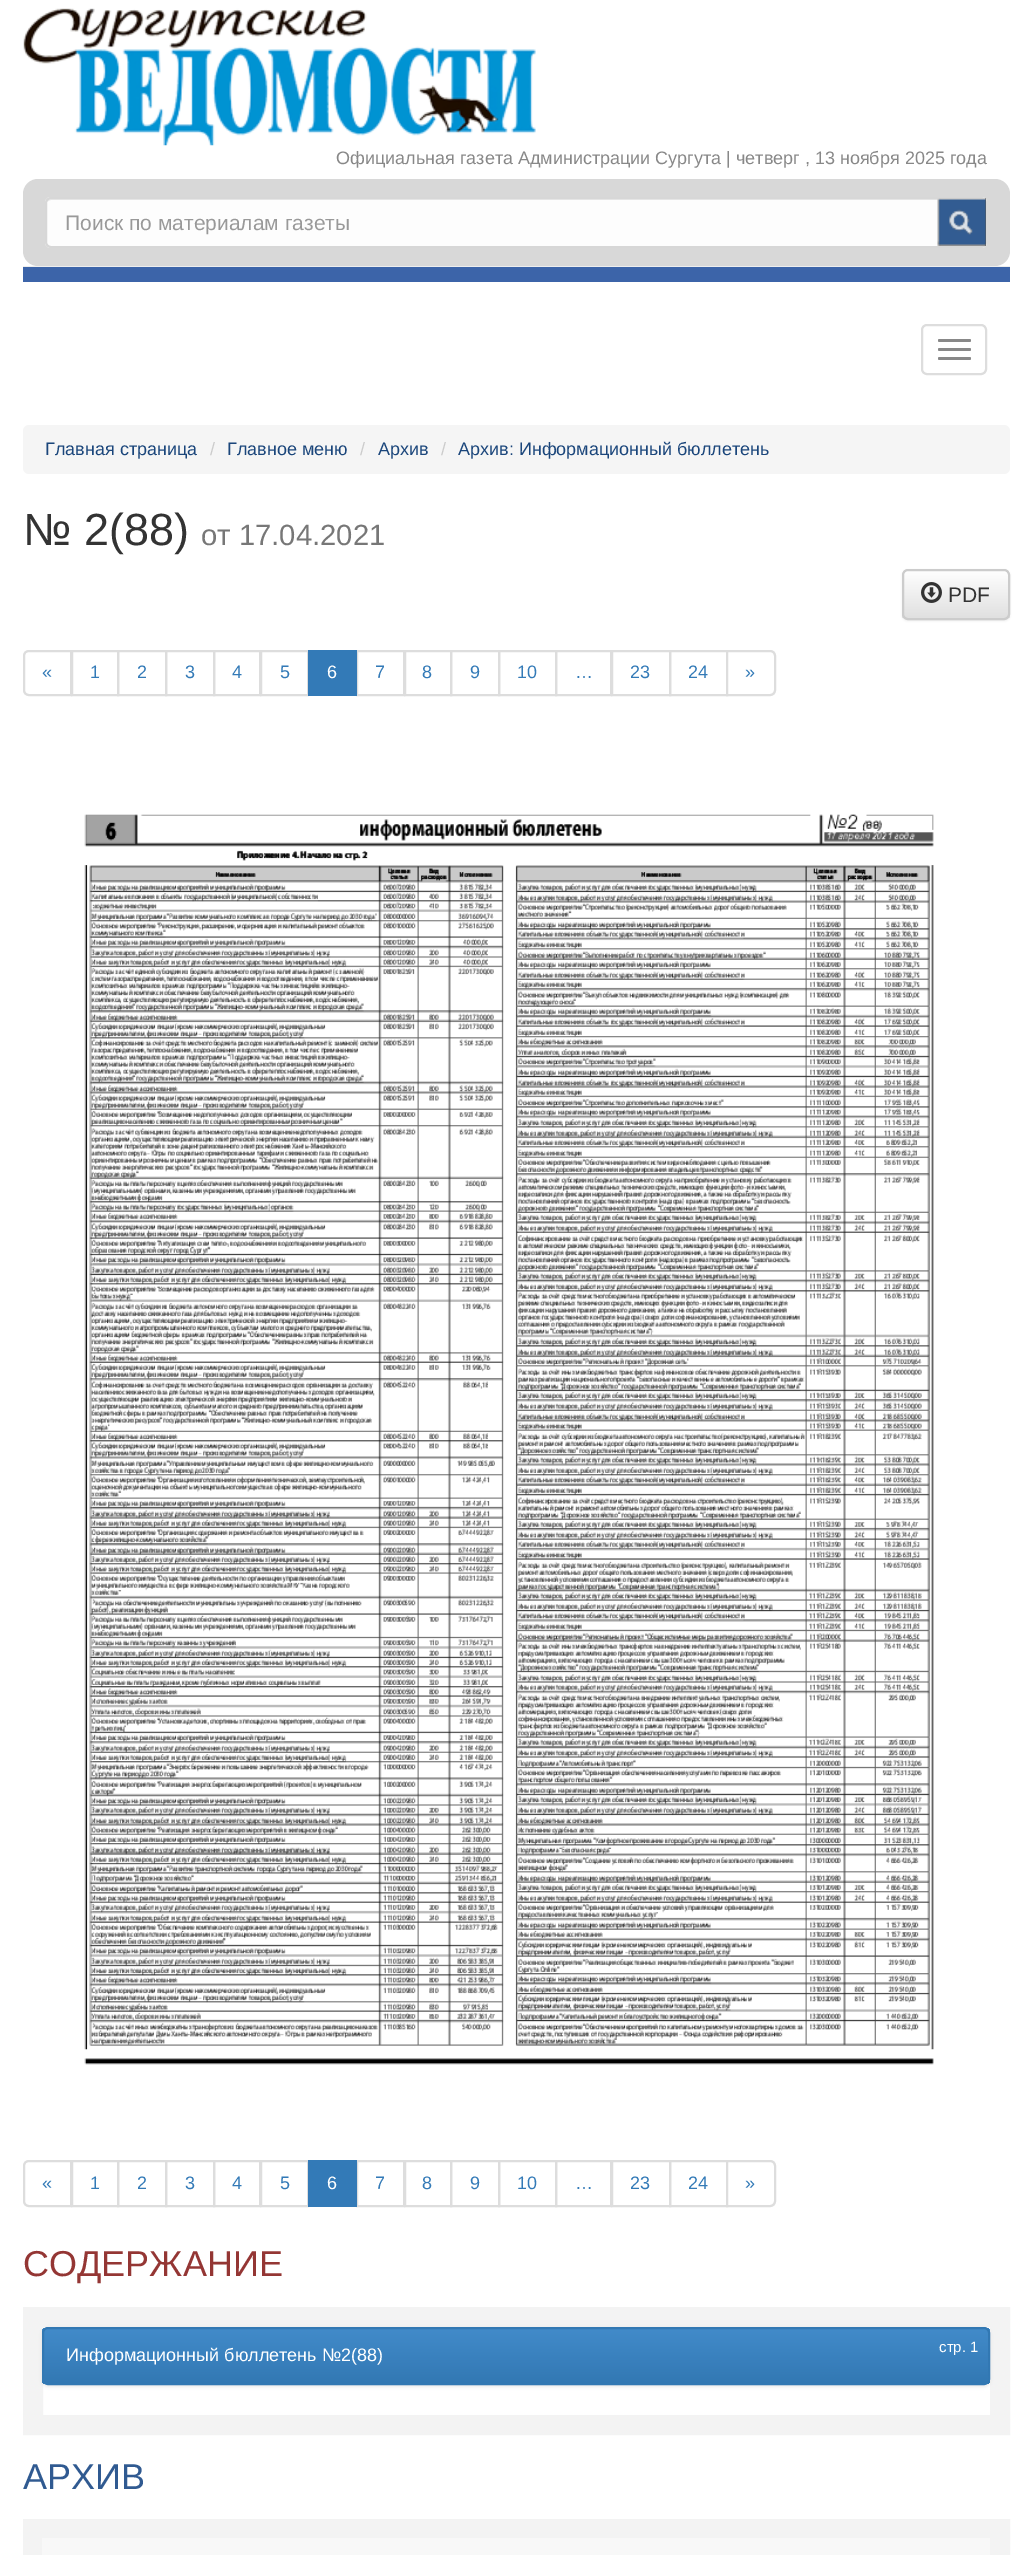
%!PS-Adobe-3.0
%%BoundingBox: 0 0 1032 2555
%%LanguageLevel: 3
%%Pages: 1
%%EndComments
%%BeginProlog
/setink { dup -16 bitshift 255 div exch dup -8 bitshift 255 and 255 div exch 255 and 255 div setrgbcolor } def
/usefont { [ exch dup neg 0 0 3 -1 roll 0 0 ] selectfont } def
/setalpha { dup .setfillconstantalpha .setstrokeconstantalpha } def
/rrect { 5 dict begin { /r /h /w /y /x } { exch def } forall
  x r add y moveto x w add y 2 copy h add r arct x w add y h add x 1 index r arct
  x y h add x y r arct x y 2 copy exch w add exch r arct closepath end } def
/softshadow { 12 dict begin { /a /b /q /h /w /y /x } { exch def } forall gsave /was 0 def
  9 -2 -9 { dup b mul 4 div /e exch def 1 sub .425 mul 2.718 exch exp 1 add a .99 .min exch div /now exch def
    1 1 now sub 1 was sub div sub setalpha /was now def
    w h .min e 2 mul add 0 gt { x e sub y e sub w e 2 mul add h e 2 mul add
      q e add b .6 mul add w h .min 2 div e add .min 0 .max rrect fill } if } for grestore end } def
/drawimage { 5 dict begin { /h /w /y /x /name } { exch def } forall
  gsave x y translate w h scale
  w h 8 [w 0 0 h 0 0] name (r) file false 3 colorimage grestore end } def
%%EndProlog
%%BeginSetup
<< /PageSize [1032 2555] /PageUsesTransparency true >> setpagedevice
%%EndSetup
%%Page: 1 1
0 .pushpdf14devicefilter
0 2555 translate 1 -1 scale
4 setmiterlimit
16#FFFFFF setink
0 0 1032 2555 rectfill
(img1.raw) 23 8 513 138 drawimage
/LiberationSans-Regular 18 usefont
16#888888 setink
336 164 moveto (Официальная газета Администрации Сургута | четверг , 13 ноября 2025 года) show
16#D8D8D8 setink
23 179 987 87 15 rrect fill
16#FDFDFD setink
45 197 942 51 6 rrect fill
16#EAEAEA setink
51 200 moveto 981 200 lineto 983 200 986 202 986 204 curveto 986 203 lineto 986 200 984 198 981 198 curveto 52 198 lineto 50 198 48 200 47 202 curveto 48 201 50 200 51 200 curveto closepath fill
16#D7D7D7 setink
2 setlinewidth
46 198 940 49 5 rrect stroke
/LiberationSans-Regular 21 usefont
16#999999 setink
65 230 moveto (Поиск по материалам газеты) show
16#575757 setink
985 198 1 48 rectfill
(img2.raw) 937 198 49 48 drawimage
16#EEEEEE setink
23 266 987 1 rectfill
16#3C64A9 setink
23 267 987 15 rectfill
16#DDDDDD setink
922 325 64 49 5 rrect stroke
16#888888 setink
938 339 33 3 1.5 rrect fill
938 348 33 3 1.5 rrect fill
938 357 33 3 1.5 rrect fill
16#F5F5F5 setink
23 425 987 49 6 rrect fill
/LiberationSans-Regular 18 usefont
16#1B467B setink
45 455 moveto (Главная страница) show
16#CCCCCC setink
210 455 moveto (/) show
16#1B467B setink
227 455 moveto (Главное меню) show
16#CCCCCC setink
360 455 moveto (/) show
16#1B467B setink
378 455 moveto (Архив) show
16#CCCCCC setink
441 455 moveto (/) show
16#1B467B setink
458 455 moveto (Архив: Информационный бюллетень) show
/LiberationSans-Regular 45 usefont
16#333333 setink
23 545 moveto (№ 2\(88\)) show
/LiberationSans-Regular 29.25 usefont
16#777777 setink
201 545 moveto (от 17.04.2021) show
16#000000 setink
902 570 108 51 6 1 0.07 softshadow
gsave
902 569 108 51 6 rrect clip newpath
gsave 902 570 moveto 1010 570 lineto 1010 618 lineto 902 618 lineto closepath clip newpath
<< /ShadingType 2 /ColorSpace /DeviceRGB /Coords [956 570 956 618] /Extend [true true] /Function << /FunctionType 2 /Domain [0 1] /C0 [1 1 1] /C1 [0.878 0.878 0.878] /N 1 >> >> shfill grestore
grestore
16#FFFFFF setink
908 572 moveto 1004 572 lineto 1006 572 1008 574 1008 576 curveto 1008 566 992 570 987 570 curveto 924 570 lineto 919 570 903 566 903 576 curveto 903 574 905 572 908 572 curveto closepath fill
16#CCCCCC setink
903 570 106 49 5 rrect stroke
(img3.raw) 921 582 21 21 drawimage
/LiberationSans-Regular 21 usefont
16#333333 setink
948 602 moveto (PDF) show
16#DDDDDD setink
29 651 moveto 71 651 lineto 71 695 lineto 29 695 lineto 26 695 24 693 24 690 curveto 24 656 lineto 24 653 26 651 29 651 curveto closepath stroke
/LiberationSans-Regular 18 usefont
16#337AB7 setink
42 678 moveto («) show
16#DDDDDD setink
72 651 46 44 rectstroke
16#337AB7 setink
90 678 moveto (1) show
16#DDDDDD setink
118 651 48 44 rectstroke
16#337AB7 setink
137 678 moveto (2) show
16#DDDDDD setink
166 651 48 44 rectstroke
16#337AB7 setink
185 678 moveto (3) show
16#DDDDDD setink
214 651 46 44 rectstroke
16#337AB7 setink
232 678 moveto (4) show
16#DDDDDD setink
261 651 47 44 rectstroke
16#337AB7 setink
280 678 moveto (5) show
16#DDDDDD setink
357 651 47 44 rectstroke
16#337AB7 setink
308 650 49 46 rectfill
16#FFFFFF setink
327 678 moveto (6) show
16#337AB7 setink
375 678 moveto (7) show
16#DDDDDD setink
405 651 46 44 rectstroke
16#337AB7 setink
422 678 moveto (8) show
16#DDDDDD setink
451 651 48 44 rectstroke
16#337AB7 setink
470 678 moveto (9) show
16#DDDDDD setink
499 651 57 44 rectstroke
16#337AB7 setink
517 678 moveto (10) show
16#DDDDDD setink
556 651 55 44 rectstroke
16#337AB7 setink
575 678 moveto (…) show
16#DDDDDD setink
612 651 58 44 rectstroke
16#337AB7 setink
630 678 moveto (23) show
16#DDDDDD setink
670 651 57 44 rectstroke
16#337AB7 setink
688 678 moveto (24) show
16#FFFFFF setink
727 651 moveto 770 651 lineto 773 651 775 653 775 656 curveto 775 690 lineto 775 693 773 695 770 695 curveto 727 695 lineto closepath gsave fill grestore
16#DDDDDD setink
stroke
16#337AB7 setink
745 678 moveto (») show
(img4.raw) 84 814 850 1251 drawimage
16#DDDDDD setink
29 2161 moveto 71 2161 lineto 71 2206 lineto 29 2206 lineto 26 2206 24 2204 24 2201 curveto 24 2166 lineto 24 2163 26 2161 29 2161 curveto closepath stroke
16#337AB7 setink
42 2189 moveto («) show
16#DDDDDD setink
72 2161 46 45 rectstroke
16#337AB7 setink
90 2189 moveto (1) show
16#DDDDDD setink
118 2161 48 45 rectstroke
16#337AB7 setink
137 2189 moveto (2) show
16#DDDDDD setink
166 2161 48 45 rectstroke
16#337AB7 setink
185 2189 moveto (3) show
16#DDDDDD setink
214 2161 46 45 rectstroke
16#337AB7 setink
232 2189 moveto (4) show
16#DDDDDD setink
261 2161 47 45 rectstroke
16#337AB7 setink
280 2189 moveto (5) show
16#DDDDDD setink
357 2161 47 45 rectstroke
16#337AB7 setink
308 2160 49 47 rectfill
16#FFFFFF setink
327 2189 moveto (6) show
16#337AB7 setink
375 2189 moveto (7) show
16#DDDDDD setink
405 2161 46 45 rectstroke
16#337AB7 setink
422 2189 moveto (8) show
16#DDDDDD setink
451 2161 48 45 rectstroke
16#337AB7 setink
470 2189 moveto (9) show
16#DDDDDD setink
499 2161 57 45 rectstroke
16#337AB7 setink
517 2189 moveto (10) show
16#DDDDDD setink
556 2161 55 45 rectstroke
16#337AB7 setink
575 2189 moveto (…) show
16#DDDDDD setink
612 2161 58 45 rectstroke
16#337AB7 setink
630 2189 moveto (23) show
16#DDDDDD setink
670 2161 57 45 rectstroke
16#337AB7 setink
688 2189 moveto (24) show
16#FFFFFF setink
727 2161 moveto 770 2161 lineto 773 2161 775 2163 775 2166 curveto 775 2201 lineto 775 2204 773 2206 770 2206 curveto 727 2206 lineto closepath gsave fill grestore
16#DDDDDD setink
stroke
16#337AB7 setink
745 2189 moveto (») show
/LiberationSans-Regular 36 usefont
16#943634 setink
23 2276 moveto (СОДЕРЖАНИЕ) show
16#F3F3F3 setink
20 setlinewidth
33 2317 967 108 rectstroke
16#000000 setink
42 2328 948 59 6 1.5 0.07 softshadow
gsave
42 2327 948 58 6 rrect clip newpath
gsave 42 2328 moveto 990 2328 lineto 990 2384 lineto 42 2384 lineto closepath clip newpath
<< /ShadingType 2 /ColorSpace /DeviceRGB /Coords [516 2328 516 2384] /Extend [true true] /Function << /FunctionType 2 /Domain [0 1] /C0 [0.259 0.545 0.792] /C1 [0.196 0.471 0.702] /N 1 >> >> shfill grestore
grestore
16#3278B3 setink
2 setlinewidth
43 2328 946 56 5 rrect stroke
/LiberationSans-Regular 18 usefont
16#FFFFFF setink
66 2361 moveto (Информационный бюллетень №2\(88\)) show
/LiberationSans-Regular 15 usefont
939 2352 moveto (стр.) show
970 2352 moveto (1) show
/LiberationSans-Regular 36 usefont
16#305A91 setink
23 2489 moveto (АРХИВ) show
16#F3F3F3 setink
20 setlinewidth
33 2529 967 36 rectstroke
16#F8F8F8 setink
42 2538 948 17 rectfill
.poppdf14devicefilter showpage
%%EOF
